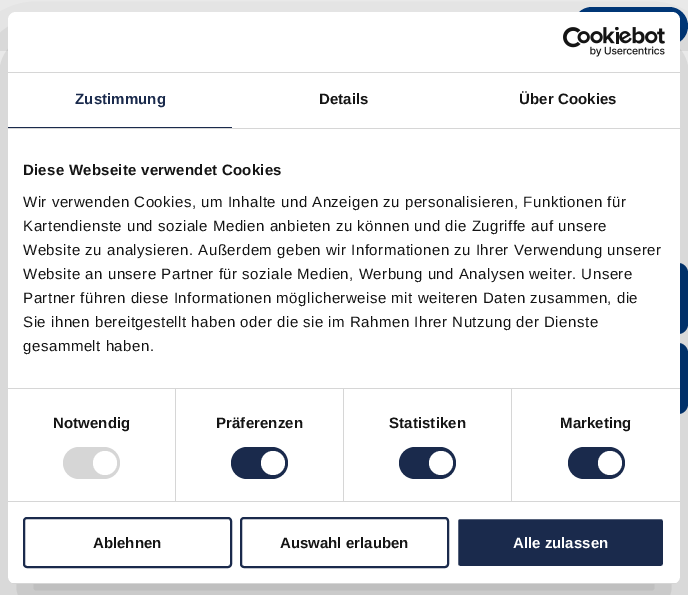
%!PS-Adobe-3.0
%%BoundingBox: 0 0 688 595
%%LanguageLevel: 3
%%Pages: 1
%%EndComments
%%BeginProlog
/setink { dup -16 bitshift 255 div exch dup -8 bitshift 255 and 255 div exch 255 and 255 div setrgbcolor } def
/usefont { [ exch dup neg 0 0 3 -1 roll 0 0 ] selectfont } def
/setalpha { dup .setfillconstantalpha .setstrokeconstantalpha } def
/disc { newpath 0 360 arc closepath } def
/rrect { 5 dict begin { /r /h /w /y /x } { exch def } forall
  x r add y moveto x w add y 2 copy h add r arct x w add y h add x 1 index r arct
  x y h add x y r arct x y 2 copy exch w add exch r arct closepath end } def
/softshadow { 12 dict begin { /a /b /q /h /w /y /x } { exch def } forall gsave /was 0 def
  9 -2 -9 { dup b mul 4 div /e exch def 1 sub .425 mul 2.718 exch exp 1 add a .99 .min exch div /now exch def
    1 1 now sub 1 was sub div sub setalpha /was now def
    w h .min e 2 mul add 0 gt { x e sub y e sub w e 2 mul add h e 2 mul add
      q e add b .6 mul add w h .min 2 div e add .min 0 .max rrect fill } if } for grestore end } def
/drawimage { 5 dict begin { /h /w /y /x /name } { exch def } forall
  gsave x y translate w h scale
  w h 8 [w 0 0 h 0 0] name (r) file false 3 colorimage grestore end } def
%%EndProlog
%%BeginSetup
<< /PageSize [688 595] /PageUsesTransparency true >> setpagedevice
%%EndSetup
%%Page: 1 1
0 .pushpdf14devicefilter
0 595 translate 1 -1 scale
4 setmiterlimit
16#FFFFFF setink
0 0 688 595 rectfill
16#EEEEEE setink
0 0 688 51 rectfill
16#00387B setink
573 7 115 38 19 rrect fill
608 263 80 71 10 rrect fill
608 343 80 71 10 rrect fill
16#000000 setink
8 44 672 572 8 34 0.3 softshadow
16#FFFFFF setink
8 12 672 572 8 rrect fill
16#D6D6D6 setink
8 72 672 1 rectfill
(img1.raw) 563 27 102 30 drawimage
8 128 672 1 rectfill
16#1A2A4C setink
8 127 224 1 rectfill
/LiberationSans-Bold 15 usefont
75 104 moveto 0.1 0 (Zustimmung) ashow
16#141414 setink
319 104 moveto 0.1 0 (Details) ashow
519 104 moveto 0.1 0 (Über Cookies) ashow
16#D6D6D6 setink
8 388 672 1 rectfill
16#141414 setink
23 175 moveto 0.25 0 (Diese Webseite verwendet Cookies) ashow
/LiberationSans-Regular 15 usefont
23 207 moveto 0.5 0 (Wir verwenden Cookies, um Inhalte und Anzeigen zu personalisieren, Funktionen für) ashow
23 231 moveto 0.5 0 (Kartendienste und soziale Medien anbieten zu können und die Zugriffe auf unsere) ashow
23 255 moveto 0.5 0 (Website zu analysieren. Außerdem geben wir Informationen zu Ihrer Verwendung unserer) ashow
23 279 moveto 0.5 0 (Website an unsere Partner für soziale Medien, Werbung und Analysen weiter. Unsere) ashow
23 303 moveto 0.5 0 (Partner führen diese Informationen möglicherweise mit weiteren Daten zusammen, die) ashow
23 327 moveto 0.5 0 (Sie ihnen bereitgestellt haben oder die sie im Rahmen Ihrer Nutzung der Dienste) ashow
23 351 moveto 0.5 0 (gesammelt haben.) ashow
16#D6D6D6 setink
8 501 672 1 rectfill
175 389 1 112 rectfill
/LiberationSans-Bold 15 usefont
16#141414 setink
53 428 moveto 0.1 0 (Notwendig) ashow
16#D6D6D6 setink
63 447 57 32 16 rrect fill
16#FFFFFF setink
105 463 12 disc fill
16#D6D6D6 setink
343 389 1 112 rectfill
16#141414 setink
216 428 moveto 0.1 0 (Präferenzen) ashow
16#1A2A4C setink
231 447 57 32 16 rrect fill
16#FFFFFF setink
273 463 12 disc fill
16#D6D6D6 setink
511 389 1 112 rectfill
16#141414 setink
389 428 moveto 0.1 0 (Statistiken) ashow
16#1A2A4C setink
399 447 57 32 16 rrect fill
16#FFFFFF setink
441 463 12 disc fill
16#141414 setink
560 428 moveto 0.1 0 (Marketing) ashow
16#1A2A4C setink
568 447 57 32 16 rrect fill
16#FFFFFF setink
610 463 12 disc fill
gsave
8 12 672 572 8 rrect clip newpath
16#D6D6D6 setink
8 583 672 1 rectfill
grestore
16#1A2A4C setink
2 setlinewidth
24 518 207 49 3 rrect stroke
16#141414 setink
93 548 moveto (Ablehnen) show
16#1A2A4C setink
241 518 207 49 3 rrect stroke
16#141414 setink
280 548 moveto (Auswahl erlauben) show
16#1A2A4C setink
457 518 207 49 3 rrect gsave fill grestore
16#FFFFFF setink
stroke
513 548 moveto (Alle zulassen) show
.poppdf14devicefilter showpage
%%EOF
